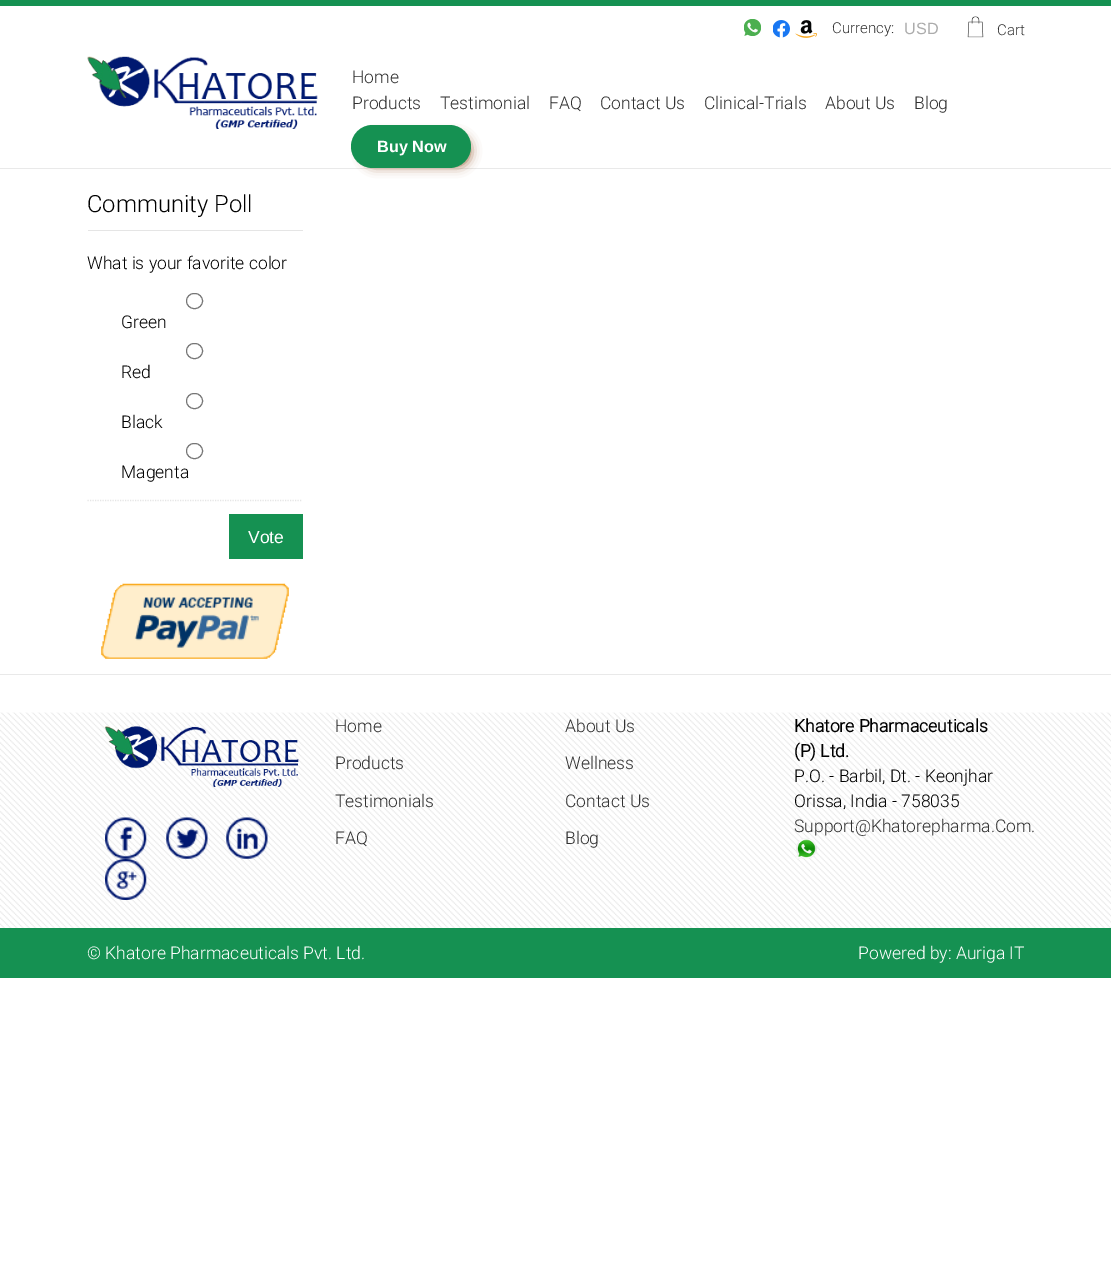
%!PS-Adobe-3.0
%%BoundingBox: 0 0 1111 1279
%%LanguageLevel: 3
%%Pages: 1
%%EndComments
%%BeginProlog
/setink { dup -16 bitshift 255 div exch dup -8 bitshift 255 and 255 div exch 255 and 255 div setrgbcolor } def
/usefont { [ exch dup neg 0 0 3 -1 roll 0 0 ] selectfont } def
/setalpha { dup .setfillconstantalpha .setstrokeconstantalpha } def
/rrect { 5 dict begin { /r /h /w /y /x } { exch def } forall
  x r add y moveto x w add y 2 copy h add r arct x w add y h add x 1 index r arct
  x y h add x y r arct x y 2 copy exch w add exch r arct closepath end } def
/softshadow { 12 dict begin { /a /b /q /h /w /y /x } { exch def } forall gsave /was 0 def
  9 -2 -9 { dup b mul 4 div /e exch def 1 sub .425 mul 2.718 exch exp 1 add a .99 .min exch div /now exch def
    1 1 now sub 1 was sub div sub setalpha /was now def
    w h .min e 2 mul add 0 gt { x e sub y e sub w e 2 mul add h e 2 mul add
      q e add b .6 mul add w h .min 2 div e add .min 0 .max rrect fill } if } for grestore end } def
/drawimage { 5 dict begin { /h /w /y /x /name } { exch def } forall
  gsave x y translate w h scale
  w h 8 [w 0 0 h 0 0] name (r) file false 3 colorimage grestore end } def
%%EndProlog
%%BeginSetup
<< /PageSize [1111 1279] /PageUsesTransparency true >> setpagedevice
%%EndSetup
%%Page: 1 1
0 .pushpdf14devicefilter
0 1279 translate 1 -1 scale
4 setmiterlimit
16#FFFFFF setink
0 0 1111 1279 rectfill
16#159152 setink
0 0 1111 6 rectfill
(img1.raw) 744 19 17 17 drawimage
(img2.raw) 773 20 17 18 drawimage
(img3.raw) 795 20 22 18 drawimage
/Roboto-Light 15 usefont
16#313131 setink
832 33 moveto (Currency:) show
/LiberationSans-Regular 16.25 usefont
16#ACACAC setink
904 34 moveto (USD) show
(img4.raw) 967 16 17 22 drawimage
/Roboto-Light 15 usefont
16#313131 setink
997 35 moveto (Cart) show
(img5.raw) 87 56 231 73 drawimage
/Roboto-Light 17.5 usefont
[
    [(Home) 352 83]
    [(Products) 352 109]
    [(Testimonial) 440 109]
    [(FAQ) 549 109]
    [(Contact Us) 600 109]
    [(Clinical-Trials) 704 109]
    [(About Us) 825 109]
    [(Blog) 914 109]
] { aload pop moveto show } forall
16#E9E9E9 setink
0 168 1111 1 rectfill
16#976036 setink
363 136 107 30 15 5.5 1 softshadow
16#159152 setink
351 125 120 43 21.5 rrect fill
/LiberationSans-Bold 16.25 usefont
16#FFFFFF setink
377 152 moveto (Buy Now) show
16#E9E9E9 setink
0 674 1111 1 rectfill
16#E5E5E5 setink
88 230 215 1 rectfill
/Roboto-Light 23.75 usefont
16#000000 setink
87 212 moveto (Community Poll) show
/Roboto-Light 17.5 usefont
87 269 moveto (What is your favorite color) show
16#767676 setink
186.5 293.5 16 15 7.5 rrect stroke
16#000000 setink
121 328 moveto (Green) show
16#767676 setink
186.5 343.5 16 15 7.5 rrect stroke
16#000000 setink
121 378 moveto (Red) show
16#767676 setink
186.5 393.5 16 15 7.5 rrect stroke
16#000000 setink
121 428 moveto (Black) show
16#767676 setink
186.5 443.5 16 15 7.5 rrect stroke
16#000000 setink
121 478 moveto (Magenta) show
16#E5E5E5 setink
1.2 setlinewidth
[1.25 1.25] 0 setdash
87.5 500.5 moveto 302.5 500.5 lineto stroke
16#159152 setink
229 514 74 45 rectfill
/LiberationSans-Regular 17.5 usefont
16#FFFFFF setink
248 543 moveto (Vote) show
(img6.raw) 101 583 188 76 drawimage
(img7.raw) 0 712 1111 216 drawimage
(img8.raw) 105 726 194 61 drawimage
(img9.raw) 105 817 42 42 drawimage
(img10.raw) 166 817 42 42 drawimage
(img11.raw) 226 817 42 42 drawimage
(img12.raw) 105 858 42 42 drawimage
/Roboto-Light 17.5 usefont
16#313131 setink
[
    [(Home) 335 732]
    [(Products) 335 769]
    [(Testimonials) 335 807]
    [(FAQ) 335 844]
    [(About Us) 565 732]
    [(Wellness) 565 769]
    [(Contact Us) 565 807]
    [(Blog) 565 844]
] { aload pop moveto show } forall
/Roboto-Bold 17.5 usefont
16#000000 setink
794 732 moveto (Khatore Pharmaceuticals) show
794 757 moveto (\(P\) Ltd.) show
/Roboto-Light 17.5 usefont
794 782 moveto (P.O. - Barbil, Dt. - Keonjhar) show
794 807 moveto (Orissa, India - 758035) show
16#313131 setink
794 832 moveto (Support@Khatorepharma.Com.) show
(img13.raw) 796 838 21 21 drawimage
16#159152 setink
0 928 1111 50 rectfill
16#FFFFFF setink
87 959 moveto (© Khatore Pharmaceuticals Pvt. Ltd.) show
858 959 moveto (Powered by: Auriga IT) show
.poppdf14devicefilter showpage
%%EOF
